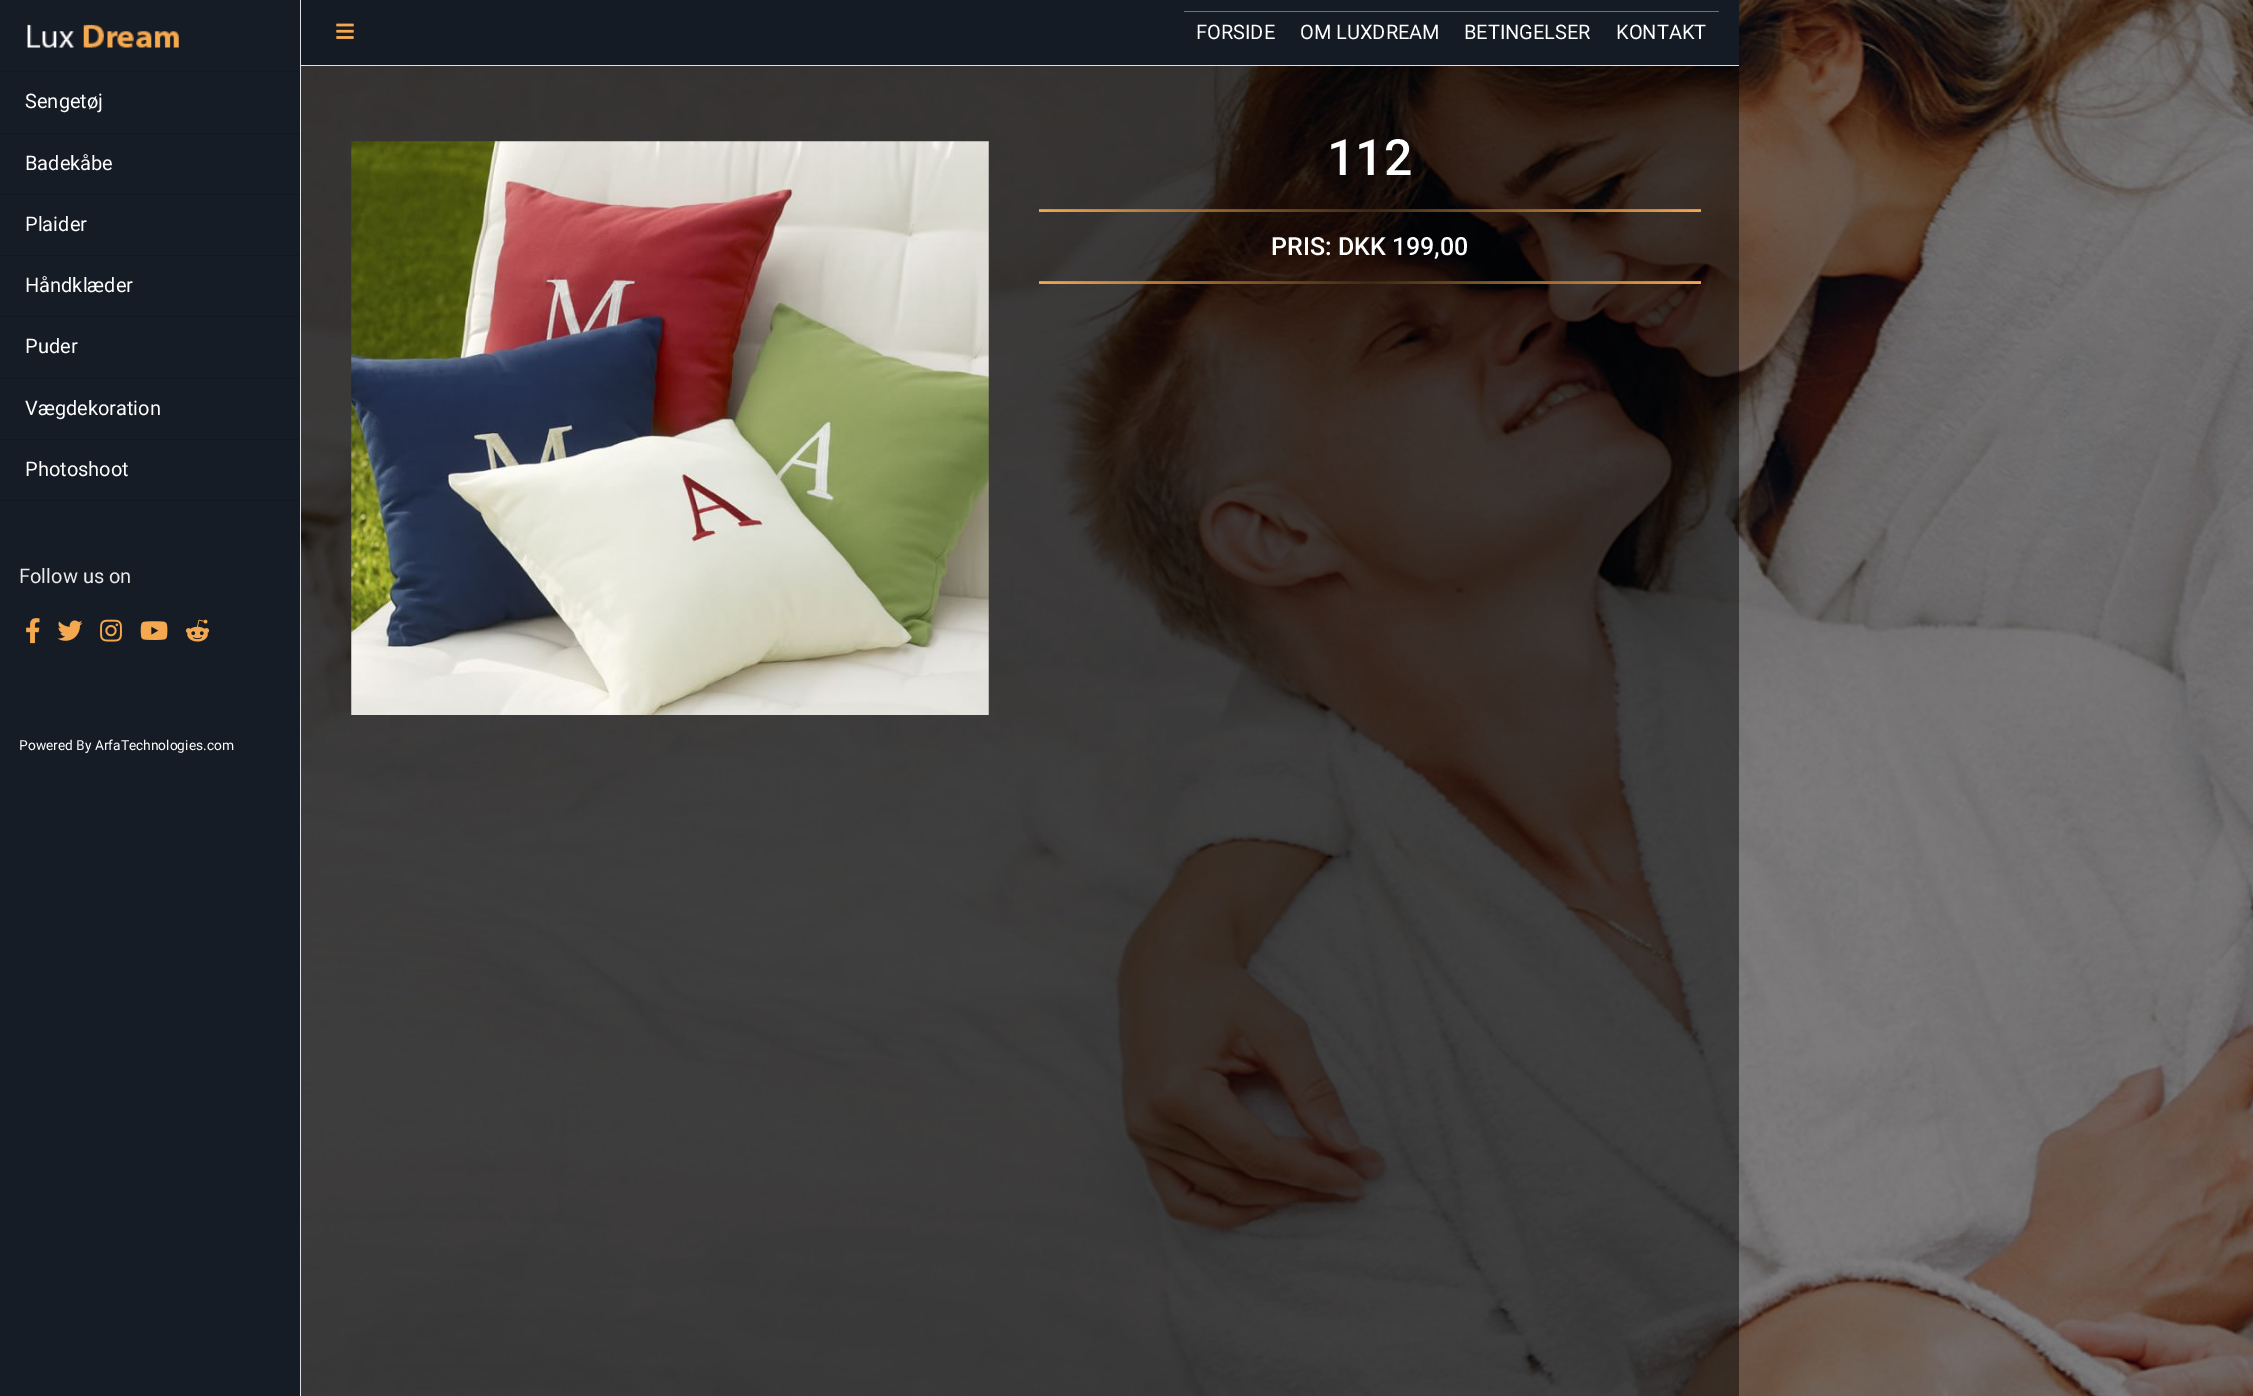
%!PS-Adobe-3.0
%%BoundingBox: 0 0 2253 1396
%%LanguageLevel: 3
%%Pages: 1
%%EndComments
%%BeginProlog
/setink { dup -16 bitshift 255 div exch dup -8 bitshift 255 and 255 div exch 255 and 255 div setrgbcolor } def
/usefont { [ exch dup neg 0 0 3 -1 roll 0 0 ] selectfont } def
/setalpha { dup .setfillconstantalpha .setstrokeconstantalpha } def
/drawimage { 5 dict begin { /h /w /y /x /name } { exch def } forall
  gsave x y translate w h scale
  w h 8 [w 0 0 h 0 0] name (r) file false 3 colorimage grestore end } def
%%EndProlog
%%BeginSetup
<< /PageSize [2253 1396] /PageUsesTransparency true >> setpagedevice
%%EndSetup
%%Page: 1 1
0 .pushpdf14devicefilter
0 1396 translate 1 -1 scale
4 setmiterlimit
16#FFFFFF setink
0 0 2253 1396 rectfill
(img1.raw) 301 0 1952 1396 drawimage
16#161C25 setink
0 0 300 1396 rectfill
16#DEE2E6 setink
300 0 1 1396 rectfill
(img2.raw) 27 24 152 24 drawimage
16#131920 setink
0 71 300 1 rectfill
/Roboto-Regular 20 usefont
16#FFFFFF setink
25 108 moveto (Sengetøj) show
16#121820 setink
0 133 300 1 rectfill
16#FFFFFF setink
25 170 moveto (Badekåbe) show
16#121820 setink
0 194 300 1 rectfill
16#FFFFFF setink
25 231 moveto (Plaider) show
16#121820 setink
0 255 300 1 rectfill
16#FFFFFF setink
25 292 moveto (Håndklæder) show
16#121820 setink
0 316 300 1 rectfill
16#FFFFFF setink
25 353 moveto (Puder) show
16#121820 setink
0 378 300 1 rectfill
16#FFFFFF setink
25 415 moveto (Vægdekoration) show
16#121820 setink
0 439 300 1 rectfill
0 500 300 1 rectfill
16#FFFFFF setink
25 476 moveto (Photoshoot) show
16#EAEAEA setink
19 583 moveto (Follow us on) show
(img3.raw) 26 618 14 26 drawimage
(img4.raw) 57 620 26 21 drawimage
(img5.raw) 100 619 22 23 drawimage
(img6.raw) 140 621 28 19 drawimage
(img7.raw) 185 619 25 23 drawimage
/Roboto-Regular 13.75 usefont
16#FFFFFF setink
19 750 moveto (Powered By ArfaTechnologies.com) show
0.48 setalpha
[
    [301 66 1438 1330 16#000000]
] { aload pop setink rectfill } forall
1 setalpha
[
    [301 0 1438 65 16#151B24]
    [301 65 1438 1 16#DEE2E6]
] { aload pop setink rectfill } forall
(img8.raw) 336 23 18 16 drawimage
16#6C6F75 setink
1184 11 535 1 rectfill
/Roboto-Regular 20 usefont
16#FFFFFF setink
[
    [(FORSIDE) 1196 39]
    [(OM LUXDREAM) 1300 39]
    [(BETINGELSER) 1464 39]
    [(KONTAKT) 1616 39]
] { aload pop moveto show } forall
(img9.raw) 351 141 638 574 drawimage
/Roboto-Medium 50 usefont
1327 175 moveto (112) show
gsave 1039 209 moveto 1701 209 lineto 1701 212 lineto 1039 212 lineto closepath clip newpath
<< /ShadingType 2 /ColorSpace /DeviceRGB /Coords [1039 211 1701 211] /Extend [true true] /Function << /FunctionType 3 /Domain [0 1] /Functions [<< /FunctionType 2 /Domain [0 1] /C0 [0.957 0.659 0.314] /C1 [0.239 0.165 0.078] /N 1 >> << /FunctionType 2 /Domain [0 1] /C0 [0.239 0.165 0.078] /C1 [0.957 0.659 0.314] /N 1 >>] /Bounds [0.5] /Encode [0 1 0 1] >> >> shfill grestore
0.1 setalpha
16#000000 setink
1039 209 662 1 rectfill
/Roboto-Medium 25 usefont
1 setalpha
16#FFFFFF setink
1271 255 moveto (PRIS: DKK 199,00) show
gsave 1039 281 moveto 1701 281 lineto 1701 284 lineto 1039 284 lineto closepath clip newpath
<< /ShadingType 2 /ColorSpace /DeviceRGB /Coords [1039 283 1701 283] /Extend [true true] /Function << /FunctionType 3 /Domain [0 1] /Functions [<< /FunctionType 2 /Domain [0 1] /C0 [0.957 0.659 0.314] /C1 [0.239 0.165 0.078] /N 1 >> << /FunctionType 2 /Domain [0 1] /C0 [0.239 0.165 0.078] /C1 [0.957 0.659 0.314] /N 1 >>] /Bounds [0.5] /Encode [0 1 0 1] >> >> shfill grestore
0.1 setalpha
16#000000 setink
1039 281 662 1 rectfill
.poppdf14devicefilter showpage
%%EOF
